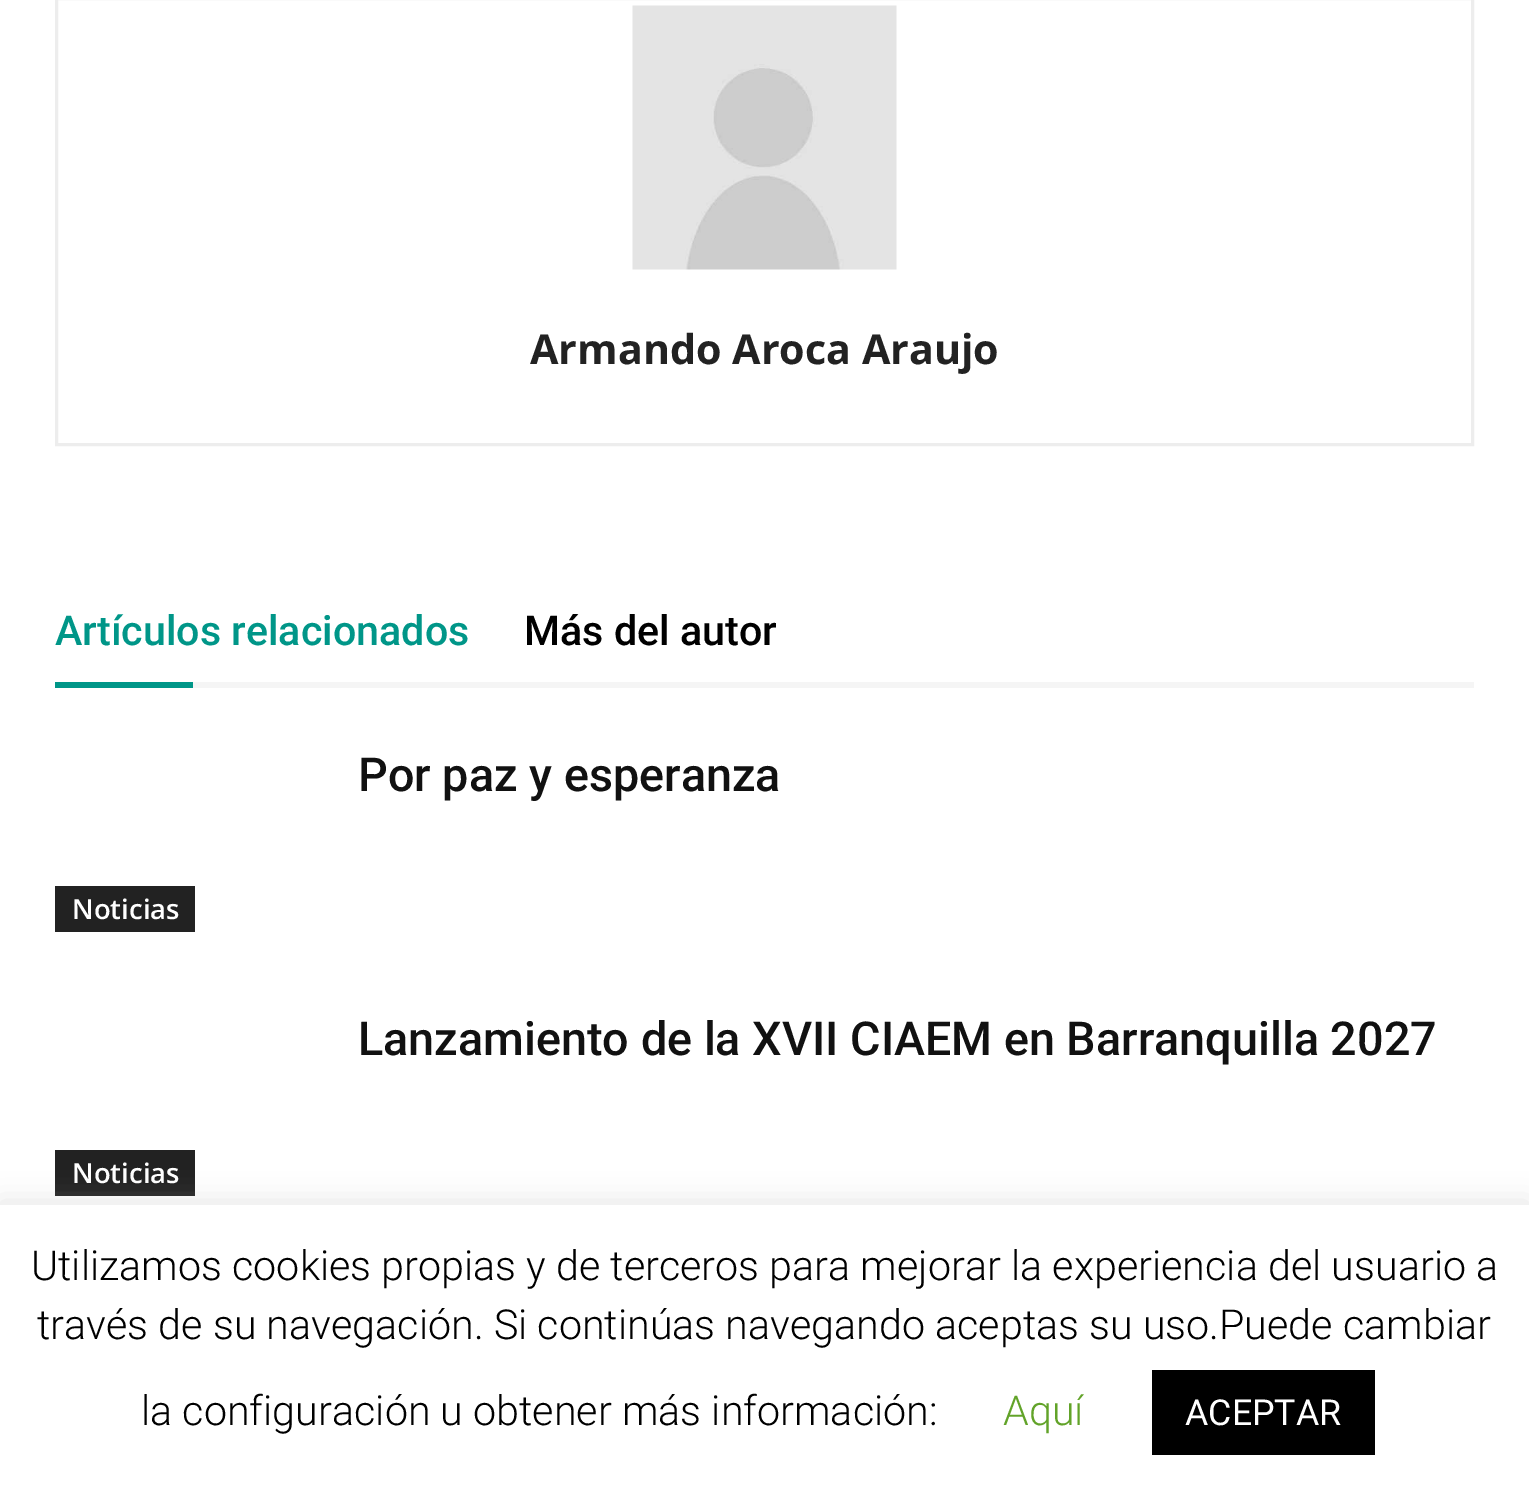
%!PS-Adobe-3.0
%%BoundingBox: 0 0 1529 1501
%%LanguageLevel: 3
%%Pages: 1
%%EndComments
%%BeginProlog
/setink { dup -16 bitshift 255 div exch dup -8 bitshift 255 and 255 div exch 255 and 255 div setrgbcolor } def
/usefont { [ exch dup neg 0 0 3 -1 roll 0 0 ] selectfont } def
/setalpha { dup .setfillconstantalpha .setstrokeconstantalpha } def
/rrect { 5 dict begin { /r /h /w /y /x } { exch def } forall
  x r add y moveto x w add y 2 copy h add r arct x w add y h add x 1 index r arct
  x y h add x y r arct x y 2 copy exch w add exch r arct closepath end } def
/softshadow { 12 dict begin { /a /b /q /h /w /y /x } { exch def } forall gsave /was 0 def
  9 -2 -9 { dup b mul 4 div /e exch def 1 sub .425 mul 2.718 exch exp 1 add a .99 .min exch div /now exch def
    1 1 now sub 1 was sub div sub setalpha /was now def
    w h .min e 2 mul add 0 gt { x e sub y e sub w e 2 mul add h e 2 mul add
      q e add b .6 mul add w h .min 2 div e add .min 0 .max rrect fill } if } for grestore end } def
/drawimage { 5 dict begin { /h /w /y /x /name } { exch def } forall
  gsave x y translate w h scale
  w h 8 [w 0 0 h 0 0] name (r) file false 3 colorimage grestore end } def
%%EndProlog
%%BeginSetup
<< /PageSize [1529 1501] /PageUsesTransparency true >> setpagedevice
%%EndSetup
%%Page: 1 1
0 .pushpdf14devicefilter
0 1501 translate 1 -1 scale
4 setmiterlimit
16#FFFFFF setink
0 0 1529 1501 rectfill
16#EDEDED setink
3 setlinewidth
56.5 -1.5 1416 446 rectstroke
(img1.raw) 632 5 265 265 drawimage
/OpenSans-Bold 41.25 usefont
16#222222 setink
530 364 moveto (Armando Aroca Araujo) show
/Roboto-Medium 41.25 usefont
16#009688 setink
55 645 moveto (Artículos relacionados) show
16#000000 setink
524 645 moveto (Más del autor) show
16#009688 setink
55 682 138 6 rectfill
16#F5F5F5 setink
193 682 1281 6 rectfill
/Roboto-Medium 46.75 usefont
16#111111 setink
358 791 moveto (Por paz y esperanza) show
16#222222 setink
55 886 140 46 rectfill
/OpenSans-SemiBold 27.5 usefont
16#FFFFFF setink
72 919 moveto (Noticias) show
/Roboto-Medium 46.75 usefont
16#111111 setink
358 1055 moveto (Lanzamiento de la XVII CIAEM en Barranquilla 2027) show
16#222222 setink
55 1150 140 46 rectfill
/OpenSans-SemiBold 27.5 usefont
16#FFFFFF setink
72 1183 moveto (Noticias) show
16#ACABAB setink
0 1202 1529 297 0 14 0.3 softshadow
16#FFFFFF setink
0 1205 1529 296 rectfill
/Roboto-Light 41.25 usefont
16#000000 setink
[
    [(Utilizamos cookies propias y de terceros para mejorar la experiencia del usuario a) 31 1280]
    [(través de su navegación. Si continúas navegando aceptas su uso.Puede cambiar) 37 1339]
    [(la configuración u obtener más información:) 141 1425]
] { aload pop moveto show } forall
16#62A329 setink
1003 1425 moveto (Aquí) show
16#000000 setink
1152 1370 223 85 rectfill
/Roboto-Regular 35.75 usefont
16#FFFFFF setink
1185 1425 moveto (ACEPTAR) show
.poppdf14devicefilter showpage
%%EOF
